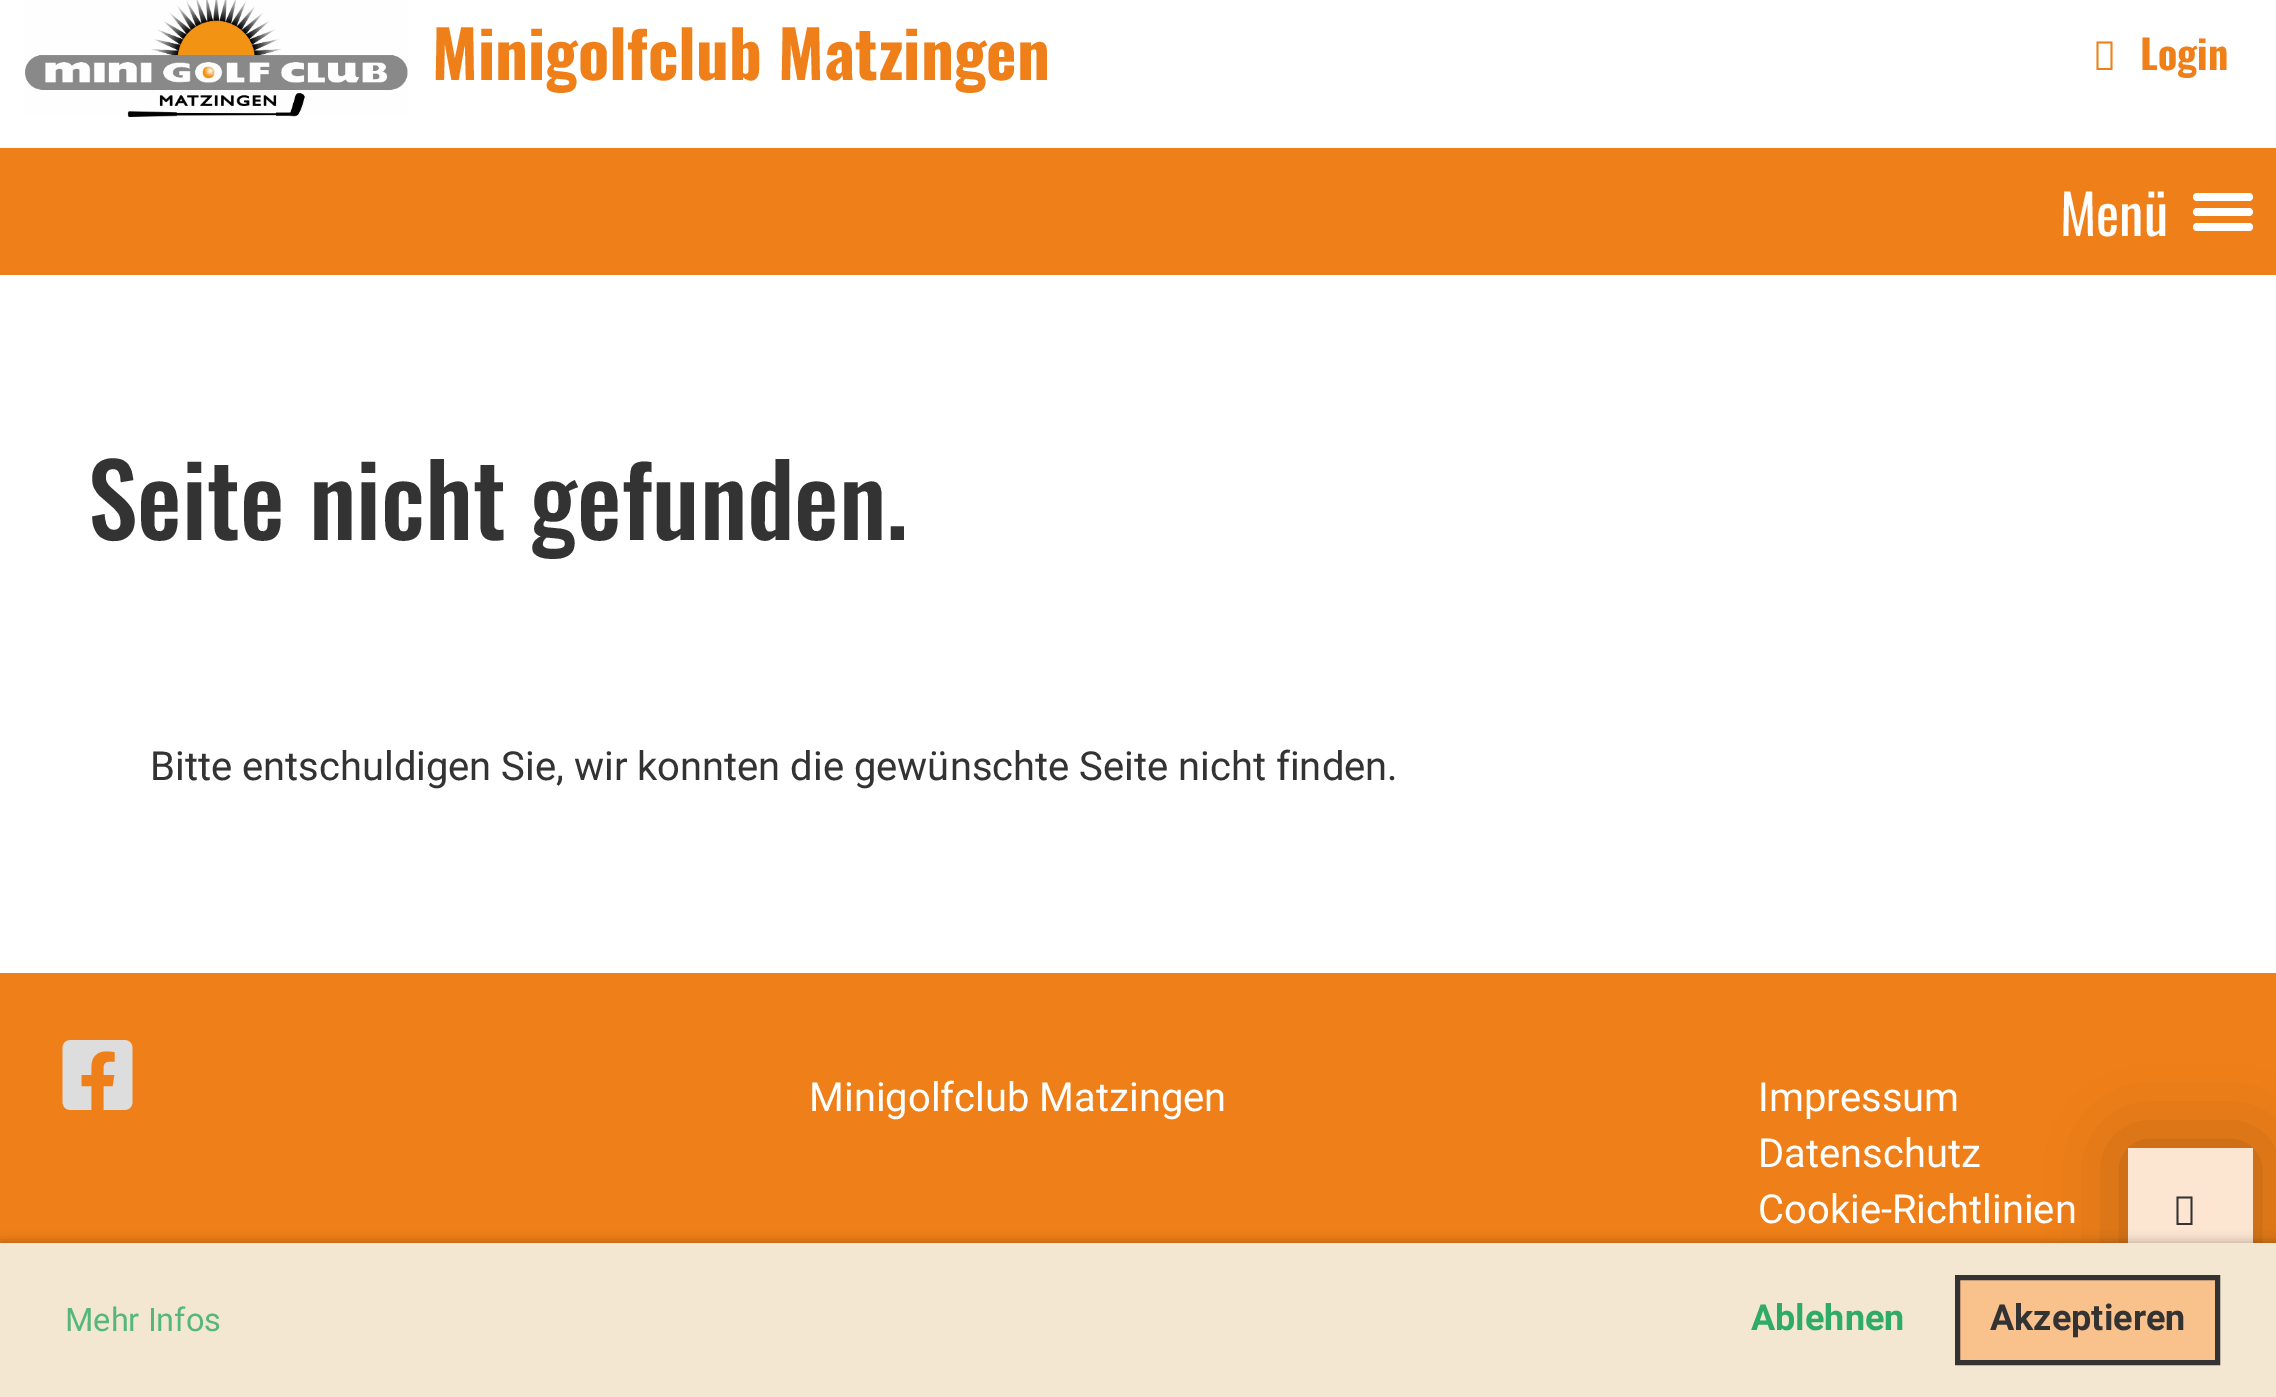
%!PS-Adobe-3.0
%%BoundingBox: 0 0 2276 1397
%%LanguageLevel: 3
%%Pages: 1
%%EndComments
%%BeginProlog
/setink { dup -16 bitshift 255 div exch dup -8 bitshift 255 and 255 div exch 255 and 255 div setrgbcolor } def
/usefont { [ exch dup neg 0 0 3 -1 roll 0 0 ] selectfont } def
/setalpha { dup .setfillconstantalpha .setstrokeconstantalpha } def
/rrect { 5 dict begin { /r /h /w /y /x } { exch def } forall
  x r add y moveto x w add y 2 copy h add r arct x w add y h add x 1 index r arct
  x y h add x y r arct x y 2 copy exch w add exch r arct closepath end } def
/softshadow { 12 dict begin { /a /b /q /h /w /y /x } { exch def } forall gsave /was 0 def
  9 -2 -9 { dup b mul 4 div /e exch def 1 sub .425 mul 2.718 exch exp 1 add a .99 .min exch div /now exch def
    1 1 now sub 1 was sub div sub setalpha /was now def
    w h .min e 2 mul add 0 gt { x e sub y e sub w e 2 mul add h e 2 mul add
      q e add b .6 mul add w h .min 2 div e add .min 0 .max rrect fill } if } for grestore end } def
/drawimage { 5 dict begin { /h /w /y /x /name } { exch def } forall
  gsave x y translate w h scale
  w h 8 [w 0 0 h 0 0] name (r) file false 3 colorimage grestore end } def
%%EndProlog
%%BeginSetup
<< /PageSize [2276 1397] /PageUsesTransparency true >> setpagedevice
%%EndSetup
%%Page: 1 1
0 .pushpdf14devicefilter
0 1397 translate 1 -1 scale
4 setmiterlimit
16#FFFFFF setink
0 0 2276 1397 rectfill
(img1.raw) 25 0 383 117 drawimage
/Oswald-Bold 65 usefont
16#EF7F18 setink
432 80 moveto (Minigolfclub Matzingen) show
2096.5 70 moveto 2096.5 41.5 lineto 2112.5 41.5 lineto 2112.5 70 lineto closepath 2098.5 68 moveto 2110.5 68 lineto 2110.5 43.5 lineto 2098.5 43.5 lineto closepath fill
/Oswald-Bold 40 usefont
2140 70 moveto (Login) show
0 148 2276 127 rectfill
/Oswald-Regular 55 usefont
16#FFFFFF setink
2060 236 moveto (Menü) show
2193 193 60 8 4 rrect fill
2193 208 60 8 4 rrect fill
2193 223 60 8 4 rrect fill
/Oswald-Medium 100 usefont
16#333333 setink
88 540 moveto (Seite nicht gefunden.) show
/Roboto-Regular 40 usefont
150 780 moveto (Bitte entschuldigen Sie, wir konnten die gewünschte Seite nicht finden.) show
16#EF7F18 setink
0 973 2276 270 rectfill
(img2.raw) 62 1040 71 70 drawimage
16#FFFFFF setink
[
    [(Minigolfclub Matzingen) 809 1111]
    [(Impressum) 1758 1111]
    [(Datenschutz) 1758 1167]
    [(Cookie-Richtlinien) 1758 1223]
] { aload pop moveto show } forall
gsave
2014 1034 moveto 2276 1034 lineto 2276 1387 lineto 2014 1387 lineto closepath 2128 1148 moveto 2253 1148 lineto 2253 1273 lineto 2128 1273 lineto closepath eoclip newpath
16#000000 setink
2128 1148 125 125 0 37.5 0.25 softshadow
grestore
0.8 setalpha
2128 1148 125 95 rectfill
1 setalpha
16#333333 setink
2176.5 1225 moveto 2176.5 1196.5 lineto 2192.5 1196.5 lineto 2192.5 1225 lineto closepath 2178.5 1223 moveto 2190.5 1223 lineto 2190.5 1198.5 lineto 2178.5 1198.5 lineto closepath fill
16#000000 setink
0 1243 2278 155 0 6 0.3 softshadow
16#F4E7D2 setink
0 1243 2276 154 rectfill
/Roboto-Regular 32.5 usefont
16#56B77C setink
65 1331 moveto (Mehr Infos) show
/Roboto-Bold 36 usefont
16#2EAB66 setink
1751 1330 moveto (Ablehnen) show
16#F9C18B setink
1957.5 1277.5 moveto 2217.5 1277.5 lineto 2217.5 1362.5 lineto 1957.5 1362.5 lineto closepath gsave fill grestore
16#333333 setink
5 setlinewidth
stroke
1990 1330 moveto (Akzeptieren) show
.poppdf14devicefilter showpage
%%EOF
